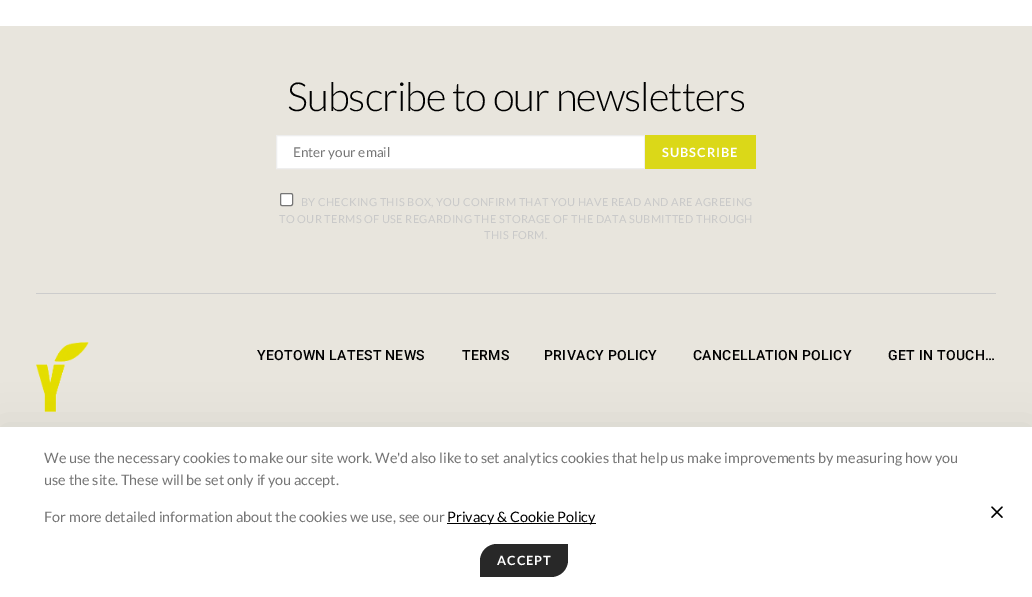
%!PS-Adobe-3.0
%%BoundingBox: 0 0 1032 597
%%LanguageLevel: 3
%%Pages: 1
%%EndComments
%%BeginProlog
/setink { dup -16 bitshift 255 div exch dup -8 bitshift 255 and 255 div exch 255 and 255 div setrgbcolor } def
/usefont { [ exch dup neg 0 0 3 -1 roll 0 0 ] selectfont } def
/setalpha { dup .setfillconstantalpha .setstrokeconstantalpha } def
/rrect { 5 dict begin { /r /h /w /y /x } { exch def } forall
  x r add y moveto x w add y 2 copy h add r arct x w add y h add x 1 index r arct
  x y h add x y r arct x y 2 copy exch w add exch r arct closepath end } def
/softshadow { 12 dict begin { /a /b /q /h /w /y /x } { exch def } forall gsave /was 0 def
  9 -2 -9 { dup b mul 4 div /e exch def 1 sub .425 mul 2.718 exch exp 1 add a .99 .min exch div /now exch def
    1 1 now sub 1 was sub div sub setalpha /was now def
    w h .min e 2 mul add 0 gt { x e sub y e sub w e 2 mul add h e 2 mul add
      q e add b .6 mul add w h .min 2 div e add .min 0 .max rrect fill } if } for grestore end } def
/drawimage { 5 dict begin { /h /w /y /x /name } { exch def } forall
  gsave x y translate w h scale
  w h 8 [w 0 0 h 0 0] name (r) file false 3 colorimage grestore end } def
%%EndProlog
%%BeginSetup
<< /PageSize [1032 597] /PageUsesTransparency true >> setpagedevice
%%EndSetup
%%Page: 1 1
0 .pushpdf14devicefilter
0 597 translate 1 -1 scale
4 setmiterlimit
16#FFFFFF setink
0 0 1032 597 rectfill
16#E8E5DD setink
0 26 1032 401 rectfill
/Lato-Light 40 usefont
16#000000 setink
287 111 moveto -1 0 (Subscribe to our newsletters) ashow
16#FFFFFF setink
276.5 135.5 moveto 644.5 135.5 lineto 644.5 168.5 lineto 276.5 168.5 lineto closepath gsave fill grestore
16#EEEEEE setink
stroke
/Lato-Regular 13.5 usefont
16#757575 setink
293 157 moveto (Enter your email) show
16#DBD818 setink
645 135 111 34 rectfill
/Lato-Bold 12.75 usefont
16#FFFFFF setink
662 157 moveto 1 0 (SUBSCRIBE) ashow
280.5 193.5 12 12 1.5 rrect gsave fill grestore
16#767676 setink
stroke
/Lato-Regular 11 usefont
16#C9C9C9 setink
301 206 moveto 0.28 0 (BY CHECKING THIS BOX, YOU CONFIRM THAT YOU HAVE READ AND ARE AGREEING) ashow
279 223 moveto 0.28 0 (TO OUR TERMS OF USE REGARDING THE STORAGE OF THE DATA SUBMITTED THROUGH) ashow
484 239 moveto 0.28 0 (THIS FORM.) ashow
16#CCCCCC setink
36 293 960 1 rectfill
(img1.raw) 36 342 53 70 drawimage
/Roboto-Medium 14 usefont
16#000000 setink
257 360 moveto 0.3 0 (YEOTOWN LATEST NEWS) ashow
462 360 moveto 0.3 0 (TERMS) ashow
544 360 moveto 0.3 0 (PRIVACY POLICY) ashow
693 360 moveto 0.3 0 (CANCELLATION POLICY) ashow
888 360 moveto 0.3 0 (GET IN TOUCH…) ashow
0 427 1032 170 0 20 0.07 softshadow
16#FFFFFF setink
0 427 1032 170 rectfill
/Lato-Regular 14.4 usefont
16#757575 setink
[
    [(We use the necessary cookies to make our site work. We'd also like to set analytics cookies that help us make improvements by measuring how you) 44 463]
    [(use the site. These will be set only if you accept.) 44 485]
    [(For more detailed information about the cookies we use, see our) 44 522]
] { aload pop moveto show } forall
16#000000 setink
447 523 149 1 rectfill
447 522 moveto (Privacy & Cookie Policy) show
(img2.raw) 991 506 12 12 drawimage
16#282828 setink
497 544 moveto 568 544 lineto 568 560 lineto 568 569.5 560.5 577 551 577 curveto 480 577 lineto 480 561 lineto 480 551.5 487.5 544 497 544 curveto closepath fill
/Lato-Bold 12.75 usefont
16#FFFFFF setink
497 565 moveto 1 0 (ACCEPT) ashow
.poppdf14devicefilter showpage
%%EOF
